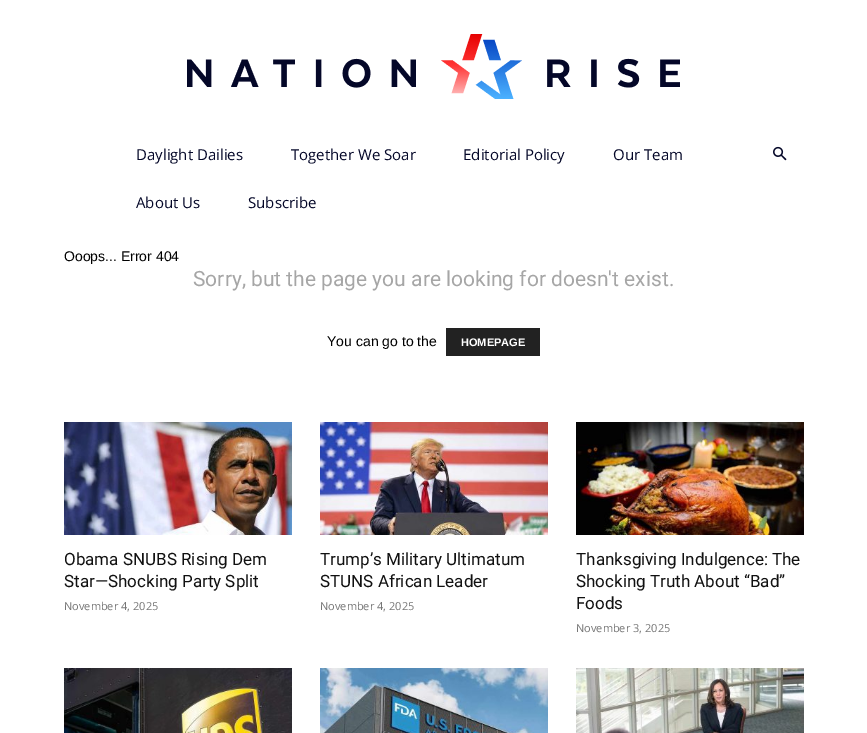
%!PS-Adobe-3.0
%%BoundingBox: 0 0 867 733
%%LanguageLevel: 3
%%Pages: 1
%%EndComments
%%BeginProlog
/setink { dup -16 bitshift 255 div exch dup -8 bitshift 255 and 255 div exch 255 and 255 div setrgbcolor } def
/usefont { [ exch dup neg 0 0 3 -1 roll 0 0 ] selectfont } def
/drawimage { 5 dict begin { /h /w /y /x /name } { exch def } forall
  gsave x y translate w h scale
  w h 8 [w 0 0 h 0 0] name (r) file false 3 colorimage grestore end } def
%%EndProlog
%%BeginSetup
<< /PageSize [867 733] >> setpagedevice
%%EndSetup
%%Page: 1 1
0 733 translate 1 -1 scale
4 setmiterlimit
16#FFFFFF setink
0 0 867 733 rectfill
(img1.raw) 187 34 493 65 drawimage
/OpenSans-Regular 15 usefont
16#040728 setink
[
    [(Daylight Dailies) 136 160]
    [(Together We Soar) 291 160]
    [(Editorial Policy) 463 160]
    [(Our Team) 613 160]
    [(About Us) 136 208]
    [(Subscribe) 248 208]
] { aload pop moveto show } forall
(img2.raw) 773 146 14 15 drawimage
/LiberationSans-Regular 14 usefont
16#000000 setink
64 261 moveto (Ooops... Error 404) show
/Roboto-Regular 21 usefont
16#A6A6A6 setink
193 286 moveto (Sorry, but the page you are looking for doesn't exist.) show
/LiberationSans-Regular 14 usefont
16#000000 setink
327 346 moveto (You can go to the) show
16#222222 setink
446 328 94 28 rectfill
/LiberationSans-Bold 11 usefont
16#FFFFFF setink
461 346 moveto (HOMEPAGE) show
(img3.raw) 64 422 228 113 drawimage
/Roboto-Regular 17 usefont
16#111111 setink
64 565 moveto (Obama SNUBS Rising Dem) show
64 587 moveto (Star—Shocking Party Split) show
/OpenSans-Regular 11 usefont
16#767676 setink
64 610 moveto (November 4, 2025) show
(img4.raw) 320 422 228 113 drawimage
/Roboto-Regular 17 usefont
16#111111 setink
320 565 moveto (Trump’s Military Ultimatum) show
320 587 moveto (STUNS African Leader) show
/OpenSans-Regular 11 usefont
16#767676 setink
320 610 moveto (November 4, 2025) show
(img5.raw) 576 422 228 113 drawimage
/Roboto-Regular 17 usefont
16#111111 setink
[
    [(Thanksgiving Indulgence: The) 576 565]
    [(Shocking Truth About “Bad”) 576 587]
    [(Foods) 576 609]
] { aload pop moveto show } forall
/OpenSans-Regular 11 usefont
16#767676 setink
576 632 moveto (November 3, 2025) show
(img6.raw) 64 668 228 65 drawimage
(img7.raw) 320 668 228 65 drawimage
(img8.raw) 576 668 228 65 drawimage
showpage
%%EOF
